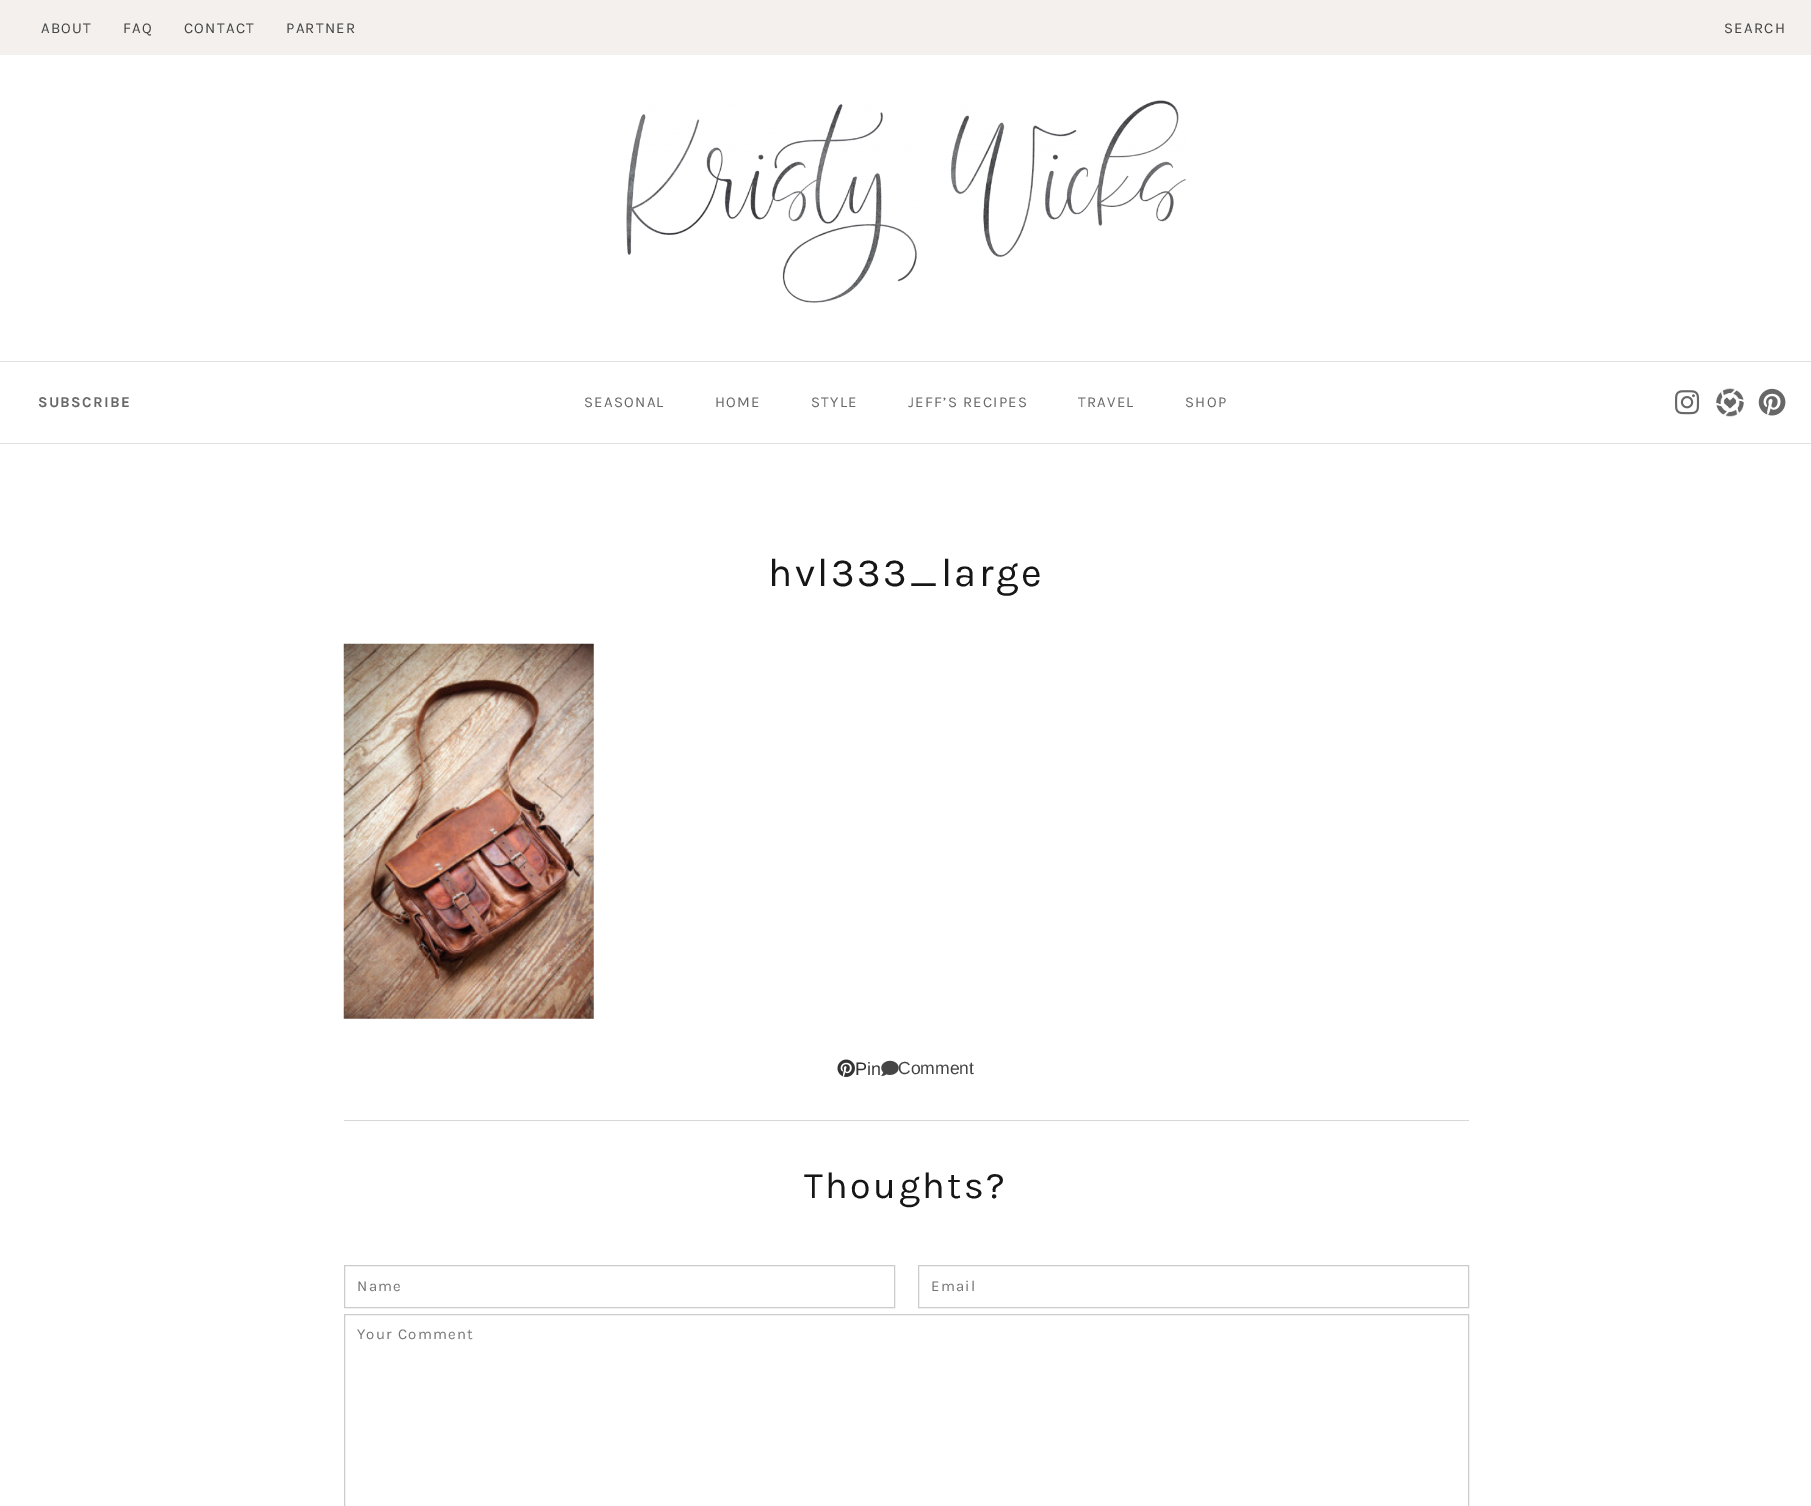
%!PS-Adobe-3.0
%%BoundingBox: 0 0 1811 1506
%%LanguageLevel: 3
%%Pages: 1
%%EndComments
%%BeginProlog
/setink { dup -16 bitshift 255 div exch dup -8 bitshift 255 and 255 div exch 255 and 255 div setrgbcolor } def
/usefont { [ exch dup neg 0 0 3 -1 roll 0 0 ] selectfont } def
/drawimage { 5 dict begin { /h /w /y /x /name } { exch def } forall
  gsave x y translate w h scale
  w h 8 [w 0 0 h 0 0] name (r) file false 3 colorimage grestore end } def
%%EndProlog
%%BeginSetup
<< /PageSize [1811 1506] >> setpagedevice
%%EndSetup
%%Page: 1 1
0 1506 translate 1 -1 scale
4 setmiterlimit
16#FFFFFF setink
0 0 1811 1506 rectfill
16#F3F0ED setink
0 0 1811 55 rectfill
/Karla-Regular 15 usefont
16#454545 setink
41 33 moveto 1.25 0 (ABOUT) ashow
123 33 moveto 1.25 0 (FAQ) ashow
184 33 moveto 1.25 0 (CONTACT) ashow
286 33 moveto 1.25 0 (PARTNER) ashow
1724 33 moveto 1.25 0 (SEARCH) ashow
(img1.raw) 626 100 560 203 drawimage
16#DFDFDF setink
0 361 1811 1 rectfill
0 443 1811 1 rectfill
/Karla-Bold 15 usefont
16#686868 setink
38 407 moveto 1.25 0 (SUBSCRIBE) ashow
/Karla-Regular 15 usefont
584 407 moveto 1.25 0 (SEASONAL) ashow
715 407 moveto 1.25 0 (HOME) ashow
811 407 moveto 1.25 0 (STYLE) ashow
908 407 moveto 1.25 0 (JEFF’S RECIPES) ashow
1078 407 moveto 1.25 0 (TRAVEL) ashow
1185 407 moveto 1.25 0 (SHOP) ashow
(img2.raw) 1675 390 25 25 drawimage
(img3.raw) 1716 388 28 29 drawimage
(img4.raw) 1758 388 28 28 drawimage
/Karla-Regular 40 usefont
16#161616 setink
768 586 moveto 2.5 0 (hvl333_large) ashow
(img5.raw) 343 643 251 376 drawimage
(img6.raw) 837 1059 18 18 drawimage
/LiberationSans-Regular 18 usefont
16#333333 setink
855 1075 moveto (Pin) show
(img7.raw) 881 1060 18 17 drawimage
/LiberationSans-Regular 17.5 usefont
16#454545 setink
898 1074 moveto (Comment) show
16#D8D8D8 setink
344 1120 1125 1 rectfill
/Karla-Regular 37.5 usefont
16#161616 setink
804 1198 moveto 2.5 0 (Thoughts?) ashow
16#CCCCCC setink
344.5 1265.5 550 42 rectstroke
/Karla-Regular 15 usefont
16#757575 setink
357 1291 moveto 1.25 0 (Name) ashow
16#CCCCCC setink
918.5 1265.5 550 42 rectstroke
16#757575 setink
931 1291 moveto 1.25 0 (Email) ashow
16#CCCCCC setink
344.5 1314.5 1124 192 rectstroke
16#757575 setink
357 1339 moveto 1.25 0 (Your Comment) ashow
showpage
%%EOF
